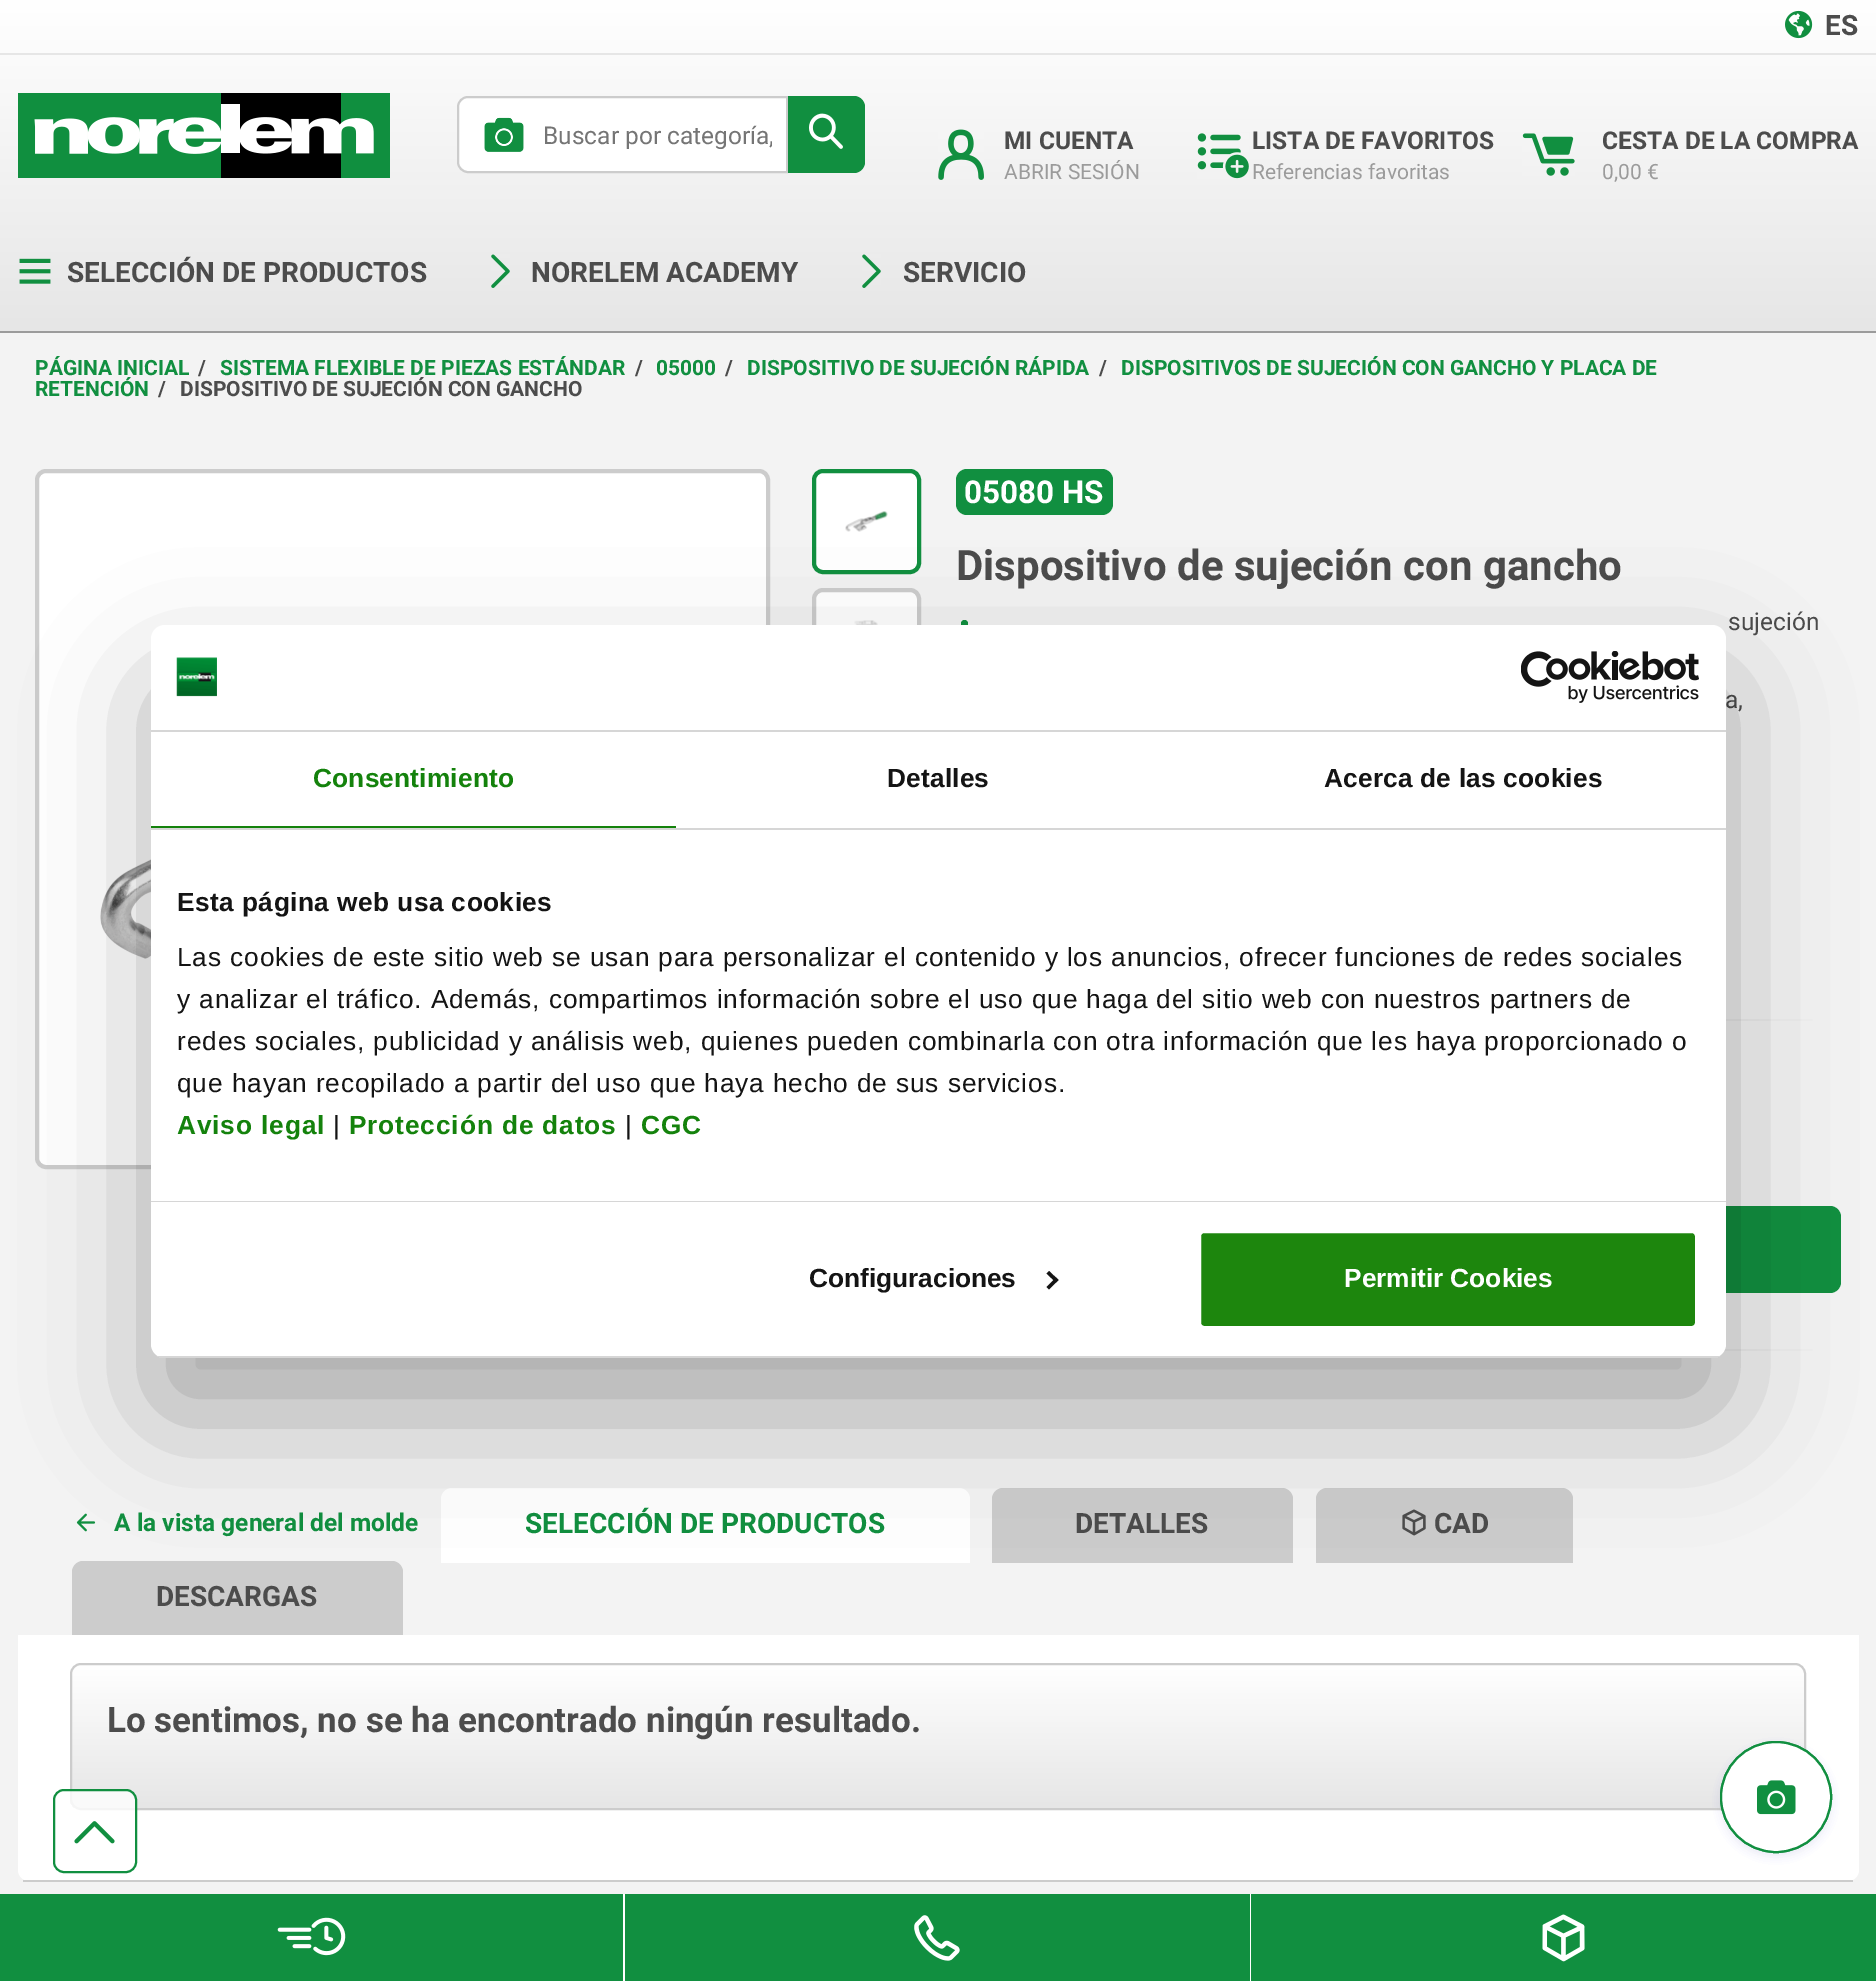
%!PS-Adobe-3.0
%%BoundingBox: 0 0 1876 1981
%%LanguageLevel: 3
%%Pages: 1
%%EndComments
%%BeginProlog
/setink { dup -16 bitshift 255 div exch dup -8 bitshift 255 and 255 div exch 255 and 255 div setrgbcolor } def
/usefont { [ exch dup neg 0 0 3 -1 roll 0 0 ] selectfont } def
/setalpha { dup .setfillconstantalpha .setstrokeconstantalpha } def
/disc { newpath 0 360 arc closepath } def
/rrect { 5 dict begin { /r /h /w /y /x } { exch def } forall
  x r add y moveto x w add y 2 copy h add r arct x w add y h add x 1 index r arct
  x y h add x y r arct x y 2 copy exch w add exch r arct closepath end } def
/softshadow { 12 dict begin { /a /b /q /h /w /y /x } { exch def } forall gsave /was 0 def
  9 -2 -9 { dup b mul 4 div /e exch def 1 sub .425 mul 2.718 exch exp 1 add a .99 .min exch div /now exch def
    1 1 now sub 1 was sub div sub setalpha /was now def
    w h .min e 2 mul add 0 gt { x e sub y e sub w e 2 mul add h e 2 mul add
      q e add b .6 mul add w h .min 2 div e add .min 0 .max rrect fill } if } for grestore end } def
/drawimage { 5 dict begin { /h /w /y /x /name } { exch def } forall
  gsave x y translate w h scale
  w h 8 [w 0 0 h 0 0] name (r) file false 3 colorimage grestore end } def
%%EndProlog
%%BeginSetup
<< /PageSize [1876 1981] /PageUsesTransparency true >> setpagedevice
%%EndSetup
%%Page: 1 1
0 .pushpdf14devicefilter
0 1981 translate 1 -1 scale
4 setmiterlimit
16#F3F3F3 setink
0 0 1876 1981 rectfill
gsave 0 0 moveto 1876 0 lineto 1876 331 lineto 0 331 lineto closepath clip newpath
<< /ShadingType 2 /ColorSpace /DeviceRGB /Coords [938 0 938 331] /Extend [true true] /Function << /FunctionType 2 /Domain [0 1] /C0 [1 1 1] /C1 [0.902 0.902 0.902] /N 1 >> >> shfill grestore
16#9B9B9B setink
0 331 1876 2 rectfill
16#E6E6E6 setink
0 53 1876 2 rectfill
(img1.raw) 1785 10 28 29 drawimage
/Roboto-Bold 28 usefont
16#4C4C4C setink
1825 35 moveto (ES) show
(img2.raw) 18 93 372 85 drawimage
16#FFFFFF setink
468 97 moveto 787 97 lineto 787 172 lineto 468 172 lineto 462.5 172 458 167.5 458 162 curveto 458 107 lineto 458 101.5 462.5 97 468 97 curveto closepath gsave fill grestore
16#CCCCCC setink
2 setlinewidth
stroke
(img4.raw) 484 118 40 34 drawimage
(img3.raw) 484 117 40 35 drawimage
gsave
543 121 229 28 rectclip
/Roboto-Regular 24.5 usefont
16#757575 setink
543 144 moveto (Buscar por categoría,) show
grestore
16#118F40 setink
788 96 moveto 854 96 lineto 860 96 865 101 865 107 curveto 865 162 lineto 865 168 860 173 854 173 curveto 788 173 lineto closepath fill
(img5.raw) 809 113 34 36 drawimage
(img6.raw) 938 129 46 51 drawimage
/Roboto-Bold 24.5 usefont
16#4C4C4C setink
1004 149 moveto (MI CUENTA) show
/Roboto-Regular 21 usefont
16#9B9B9B setink
1004 179 moveto (ABRIR SESIÓN) show
(img7.raw) 1197 133 52 46 drawimage
/Roboto-Bold 24.5 usefont
16#4C4C4C setink
1252 149 moveto (LISTA DE FAVORITOS) show
/Roboto-Regular 21 usefont
16#9B9B9B setink
1252 179 moveto (Referencias favoritas) show
(img8.raw) 1522 133 53 43 drawimage
/Roboto-Bold 24.5 usefont
16#4C4C4C setink
1602 149 moveto (CESTA DE LA COMPRA) show
/Roboto-Regular 21 usefont
16#9B9B9B setink
1602 179 moveto (0,00 €) show
(img9.raw) 19 258 32 26 drawimage
/Roboto-Bold 28 usefont
16#4C4C4C setink
67 282 moveto (SELECCIÓN DE PRODUCTOS) show
(img10.raw) 491 254 19 34 drawimage
531 282 moveto (NORELEM ACADEMY) show
(img10.raw) 862 254 19 34 drawimage
903 282 moveto (SERVICIO) show
/Roboto-Bold 21 usefont
16#118F40 setink
35 375 moveto (PÁGINA INICIAL) show
16#4C4C4C setink
198 375 moveto (/) show
16#118F40 setink
220 375 moveto (SISTEMA FLEXIBLE DE PIEZAS ESTÁNDAR) show
16#4C4C4C setink
635 375 moveto (/) show
16#118F40 setink
656 375 moveto (05000) show
16#4C4C4C setink
725 375 moveto (/) show
16#118F40 setink
747 375 moveto (DISPOSITIVO DE SUJECIÓN RÁPIDA) show
16#4C4C4C setink
1099 375 moveto (/) show
16#118F40 setink
1121 375 moveto (DISPOSITIVOS DE SUJECIÓN CON GANCHO Y PLACA DE) show
35 396 moveto (RETENCIÓN) show
16#4C4C4C setink
158 396 moveto (/) show
180 396 moveto (DISPOSITIVO DE SUJECIÓN CON GANCHO) show
16#FFFFFF setink
37 471 731 696 9 rrect gsave fill grestore
16#CCCCCC setink
4 setlinewidth
stroke
(img11.raw) 100 859 51 100 drawimage
16#FFFFFF setink
814 471 105 101 9 rrect gsave fill grestore
16#118F40 setink
stroke
(img12.raw) 845 511 43 21 drawimage
16#FFFFFF setink
814 590 105 101 9 rrect gsave fill grestore
16#CCCCCC setink
stroke
(img13.raw) 854 620 24 5 drawimage
16#118F40 setink
956 469 157 46 11 rrect fill
/Roboto-Bold 31.5 usefont
16#FFFFFF setink
964 503 moveto (05080 HS) show
/Roboto-Bold 42 usefont
16#4C4C4C setink
956 580 moveto (Dispositivo de sujeción con gancho) show
16#118F40 setink
964.5 623.5 3.5 disc fill
/Roboto-Regular 24.5 usefont
16#4C4C4C setink
1728 630 moveto (sujeción) show
1725 708 moveto (a,) show
gsave 1726 1019 moveto 1813 1019 lineto 1813 1021 lineto 1726 1021 lineto closepath clip newpath
<< /ShadingType 2 /ColorSpace /DeviceRGB /Coords [956 1019 1841 1019] /Extend [true true] /Function << /FunctionType 3 /Domain [0 1] /Functions [<< /FunctionType 2 /Domain [0 1] /C0 [0.953 0.953 0.953] /C1 [0.8 0.8 0.8] /N 1 >> << /FunctionType 2 /Domain [0 1] /C0 [0.8 0.8 0.8] /C1 [0.953 0.953 0.953] /N 1 >>] /Bounds [0.5] /Encode [0 1 0 1] >> >> shfill grestore
16#118F40 setink
956 1206 885 87 11 rrect fill
gsave 1724 1349 moveto 1813 1349 lineto 1813 1351 lineto 1724 1351 lineto closepath clip newpath
<< /ShadingType 2 /ColorSpace /DeviceRGB /Coords [956 1350 1841 1350] /Extend [true true] /Function << /FunctionType 3 /Domain [0 1] /Functions [<< /FunctionType 2 /Domain [0 1] /C0 [0.953 0.953 0.953] /C1 [0.8 0.8 0.8] /N 1 >> << /FunctionType 2 /Domain [0 1] /C0 [0.8 0.8 0.8] /C1 [0.953 0.953 0.953] /N 1 >>] /Bounds [0.5] /Encode [0 1 0 1] >> >> shfill grestore
(img14.raw) 76 1513 20 19 drawimage
/Roboto-Bold 24.5 usefont
114 1531 moveto (A la vista general del molde) show
16#FFFFFF setink
452 1488 moveto 959 1488 lineto 965 1488 970 1493 970 1499 curveto 970 1563 lineto 441 1563 lineto 441 1499 lineto 441 1493 446 1488 452 1488 curveto closepath fill
/Roboto-Bold 28 usefont
16#118F40 setink
525 1533 moveto (SELECCIÓN DE PRODUCTOS) show
16#CCCCCC setink
1003 1488 moveto 1282 1488 lineto 1288 1488 1293 1493 1293 1499 curveto 1293 1563 lineto 992 1563 lineto 992 1499 lineto 992 1493 997 1488 1003 1488 curveto closepath fill
16#4C4C4C setink
1075 1533 moveto (DETALLES) show
16#CCCCCC setink
1327 1488 moveto 1562 1488 lineto 1568 1488 1573 1493 1573 1499 curveto 1573 1563 lineto 1316 1563 lineto 1316 1499 lineto 1316 1493 1321 1488 1327 1488 curveto closepath fill
(img15.raw) 1402 1509 24 27 drawimage
16#4C4C4C setink
1434 1533 moveto (CAD) show
16#CCCCCC setink
83 1561 moveto 392 1561 lineto 398 1561 403 1566 403 1572 curveto 403 1635 lineto 72 1635 lineto 72 1572 lineto 72 1566 77 1561 83 1561 curveto closepath fill
16#4C4C4C setink
156 1606 moveto (DESCARGAS) show
16#FFFFFF setink
18 1635 moveto 1859 1635 lineto 1859 1870 lineto 1859 1876 1854 1881 1848 1881 curveto 29 1881 lineto 23 1881 18 1876 18 1870 curveto closepath fill
16#CCCCCC setink
23 1880 1830 2 rectfill
gsave
70 1663 1736 147 11 rrect clip newpath
gsave 70 1664 moveto 1806 1664 lineto 1806 1808 lineto 70 1808 lineto closepath clip newpath
<< /ShadingType 2 /ColorSpace /DeviceRGB /Coords [938 1808 938 1664] /Extend [true true] /Function << /FunctionType 2 /Domain [0 1] /C0 [0.902 0.902 0.902] /C1 [1 1 1] /N 1 >> >> shfill grestore
grestore
2 setlinewidth
71 1664 1734 145 10 rrect stroke
/Roboto-Bold 35 usefont
16#4C4C4C setink
107 1732 moveto (Lo sentimos, no se ha encontrado ningún resultado.) show
0.8 setalpha
16#FFFFFF setink
54 1790 82 82 10 rrect fill
1 setalpha
16#118F40 setink
54 1790 82 82 10 rrect stroke
(img16.raw) 74 1821 41 23 drawimage
16#4D5F80 setink
1720 1745 112 112 56 4.5 0.06 softshadow
16#118F40 setink
1776 1797 55 disc stroke
0 1894 623 87 rectfill
16#FFFFFF setink
623 1894 2 87 rectfill
(img17.raw) 277 1917 69 39 drawimage
16#118F40 setink
625 1894 625 87 rectfill
16#FFFFFF setink
1250 1894 1 87 rectfill
(img18.raw) 914 1915 46 46 drawimage
16#118F40 setink
1251 1894 625 87 rectfill
(img19.raw) 1542 1914 43 48 drawimage
16#000000 setink
151 681 1575 733 14 59.5 0.3 softshadow
16#FFFFFF setink
151 625 1575 733 14 rrect fill
16#D6D6D6 setink
151 730 1575 2 rectfill
(img20.raw) 176 657 41 40 drawimage
(img21.raw) 1521 651 178 52 drawimage
151 828 1575 2 rectfill
16#14820C setink
151 826 525 2 rectfill
/LiberationSans-Bold 26.25 usefont
313 787 moveto 0.2 0 (Consentimiento) ashow
16#141414 setink
887 787 moveto 0.2 0 (Detalles) ashow
1324 787 moveto 0.2 0 (Acerca de las cookies) ashow
16#D6D6D6 setink
151 1201 1575 1 rectfill
16#141414 setink
177 911 moveto 0.45 0 (Esta página web usa cookies) ashow
/LiberationSans-Regular 26.25 usefont
177 966 moveto 0.88 0 (Las cookies de este sitio web se usan para personalizar el contenido y los anuncios, ofrecer funciones de redes sociales) ashow
177 1008 moveto 0.88 0 (y analizar el tráfico. Además, compartimos información sobre el uso que haga del sitio web con nuestros partners de) ashow
177 1050 moveto 0.88 0 (redes sociales, publicidad y análisis web, quienes pueden combinarla con otra información que les haya proporcionado o) ashow
177 1092 moveto 0.88 0 (que hayan recopilado a partir del uso que haya hecho de sus servicios.) ashow
/LiberationSans-Bold 26.25 usefont
16#14820C setink
177 1134 moveto 0.88 0 (Aviso legal) ashow
/LiberationSans-Regular 26.25 usefont
16#141414 setink
333 1134 moveto 0.88 0 (|) ashow
/LiberationSans-Bold 26.25 usefont
16#14820C setink
349 1134 moveto 0.88 0 (Protección de datos) ashow
/LiberationSans-Regular 26.25 usefont
16#141414 setink
625 1134 moveto 0.88 0 (|) ashow
/LiberationSans-Bold 26.25 usefont
16#14820C setink
641 1134 moveto 0.88 0 (CGC) ashow
gsave
151 625 1575 733 14 rrect clip newpath
16#D6D6D6 setink
151 1356 1575 2 rectfill
grestore
16#141414 setink
809 1287 moveto (Configuraciones) show
1049 1271 moveto 1058.5 1280 lineto 1056 1282.5 lineto 1046.5 1273.5 lineto closepath fill
1056 1277.5 moveto 1058.5 1280 lineto 1049 1289.5 lineto 1046.5 1287 lineto closepath fill
16#1D860D setink
1199 1231 498 97 5 rrect gsave fill grestore
16#FFFFFF setink
4 setlinewidth
stroke
1344 1287 moveto (Permitir Cookies) show
16#4D5F80 setink
1720 1745 112 112 56 4.5 0.06 softshadow
16#FFFFFF setink
1776 1797 55 disc gsave fill grestore
16#118F40 setink
2 setlinewidth
stroke
(img22.raw) 1757 1780 39 35 drawimage
.poppdf14devicefilter showpage
%%EOF
